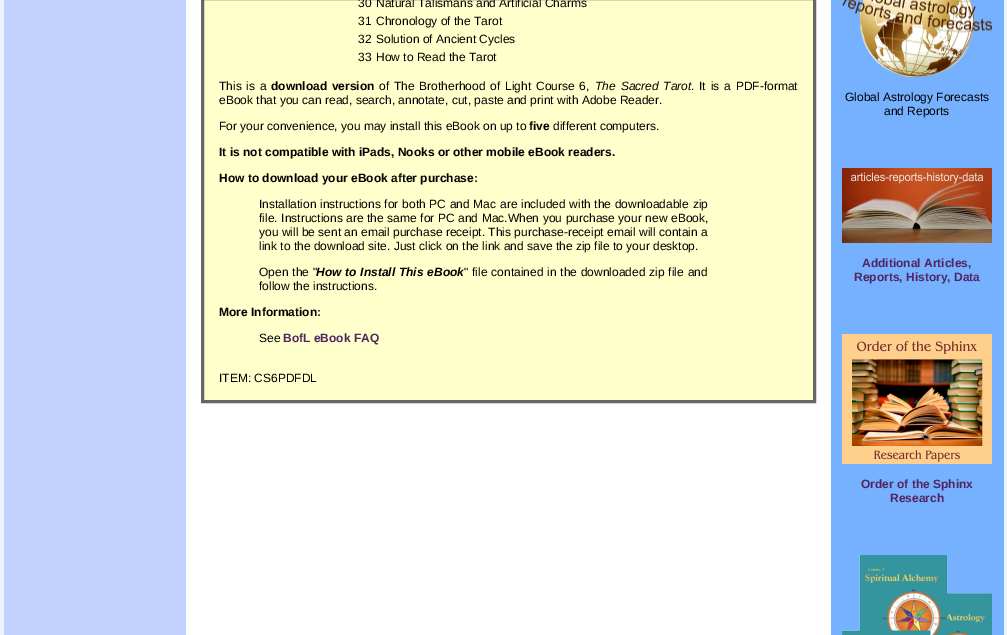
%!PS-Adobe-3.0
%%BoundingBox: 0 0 1007 635
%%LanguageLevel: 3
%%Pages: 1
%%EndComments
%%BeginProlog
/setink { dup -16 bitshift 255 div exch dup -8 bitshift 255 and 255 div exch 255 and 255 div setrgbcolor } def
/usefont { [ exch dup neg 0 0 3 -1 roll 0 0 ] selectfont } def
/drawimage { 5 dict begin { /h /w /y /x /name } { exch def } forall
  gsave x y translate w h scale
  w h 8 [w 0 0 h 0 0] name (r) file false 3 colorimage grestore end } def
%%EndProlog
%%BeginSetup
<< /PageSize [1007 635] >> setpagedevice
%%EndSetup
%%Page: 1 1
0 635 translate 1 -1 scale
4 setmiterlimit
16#ECF5FB setink
0 0 1007 635 rectfill
16#FFFFFF setink
186 0 645 635 rectfill
16#C3D1FE setink
4 0 182 635 rectfill
16#FFFFCC setink
202.5 -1.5 moveto 814.5 -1.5 lineto 814.5 401.5 lineto 202.5 401.5 lineto closepath gsave fill grestore
16#666666 setink
3 setlinewidth
stroke
/LiberationSans-Regular 12 usefont
16#000000 setink
[
    [(30) 358 7]
    [(Natural Talismans and Artificial Charms) 376 7]
    [(31) 358 25]
    [(Chronology of the Tarot) 376 25]
    [(32) 358 43]
    [(Solution of Ancient Cycles) 376 43]
    [(33) 358 61]
    [(How to Read the Tarot) 376 61]
] { aload pop moveto show } forall
219 90 moveto 1.5 0 32 (This is a) widthshow
/LiberationSans-Bold 12 usefont
271 90 moveto 1.5 0 32 (download version) widthshow
/LiberationSans-Regular 12 usefont
379 90 moveto 1.5 0 32 (of The Brotherhood of Light Course 6,) widthshow
/LiberationSans-Italic 12 usefont
595 90 moveto 1.5 0 32 (The Sacred Tarot) widthshow
/LiberationSans-Regular 12 usefont
691 90 moveto 1.5 0 32 (. It is a PDF-format) widthshow
219 104 moveto (eBook that you can read, search, annotate, cut, paste and print with Adobe Reader.) show
219 130 moveto (For your convenience, you may install this eBook on up to) show
/LiberationSans-Bold 12 usefont
529 130 moveto (five) show
/LiberationSans-Regular 12 usefont
553 130 moveto (different computers.) show
/LiberationSans-Bold 12 usefont
219 156 moveto (It is not compatible with iPads, Nooks or other mobile eBook readers.) show
219 182 moveto (How to download your eBook after purchase:) show
/LiberationSans-Regular 12 usefont
259 208 moveto 0.4 0 32 (Installation instructions for both PC and Mac are included with the downloadable zip) widthshow
259 222 moveto 0.25 0 32 (file. Instructions are the same for PC and Mac.When you purchase your new eBook,) widthshow
259 236 moveto (you will be sent an email purchase receipt. This purchase-receipt email will contain a) show
259 250 moveto (link to the download site. Just click on the link and save the zip file to your desktop.) show
259 276 moveto 0.5 0 32 (Open the ") widthshow
/LiberationSans-BoldItalic 12 usefont
316 276 moveto 0.5 0 32 (How to Install This eBook) widthshow
/LiberationSans-Regular 12 usefont
464 276 moveto 0.5 0 32 (" file contained in the downloaded zip file and) widthshow
259 290 moveto (follow the instructions.) show
/LiberationSans-Bold 12 usefont
219 316 moveto (More Information:) show
/LiberationSans-Regular 12 usefont
259 342 moveto (See) show
/LiberationSans-Bold 12 usefont
16#522561 setink
283 342 moveto (BofL eBook FAQ) show
/LiberationSans-Regular 12 usefont
16#000000 setink
219 382 moveto (ITEM: CS6PDFDL) show
16#76B1FF setink
831 0 173 635 rectfill
(img1.raw) 842 0 150 77 drawimage
16#000000 setink
845 101 moveto (Global Astrology Forecasts) show
884 115 moveto (and Reports) show
(img2.raw) 842 168 150 75 drawimage
/LiberationSans-Bold 12 usefont
16#522561 setink
862 267 moveto (Additional Articles,) show
854 281 moveto (Reports, History, Data) show
(img3.raw) 842 334 150 130 drawimage
861 488 moveto (Order of the Sphinx) show
890 502 moveto (Research) show
(img4.raw) 842 555 150 80 drawimage
showpage
%%EOF
